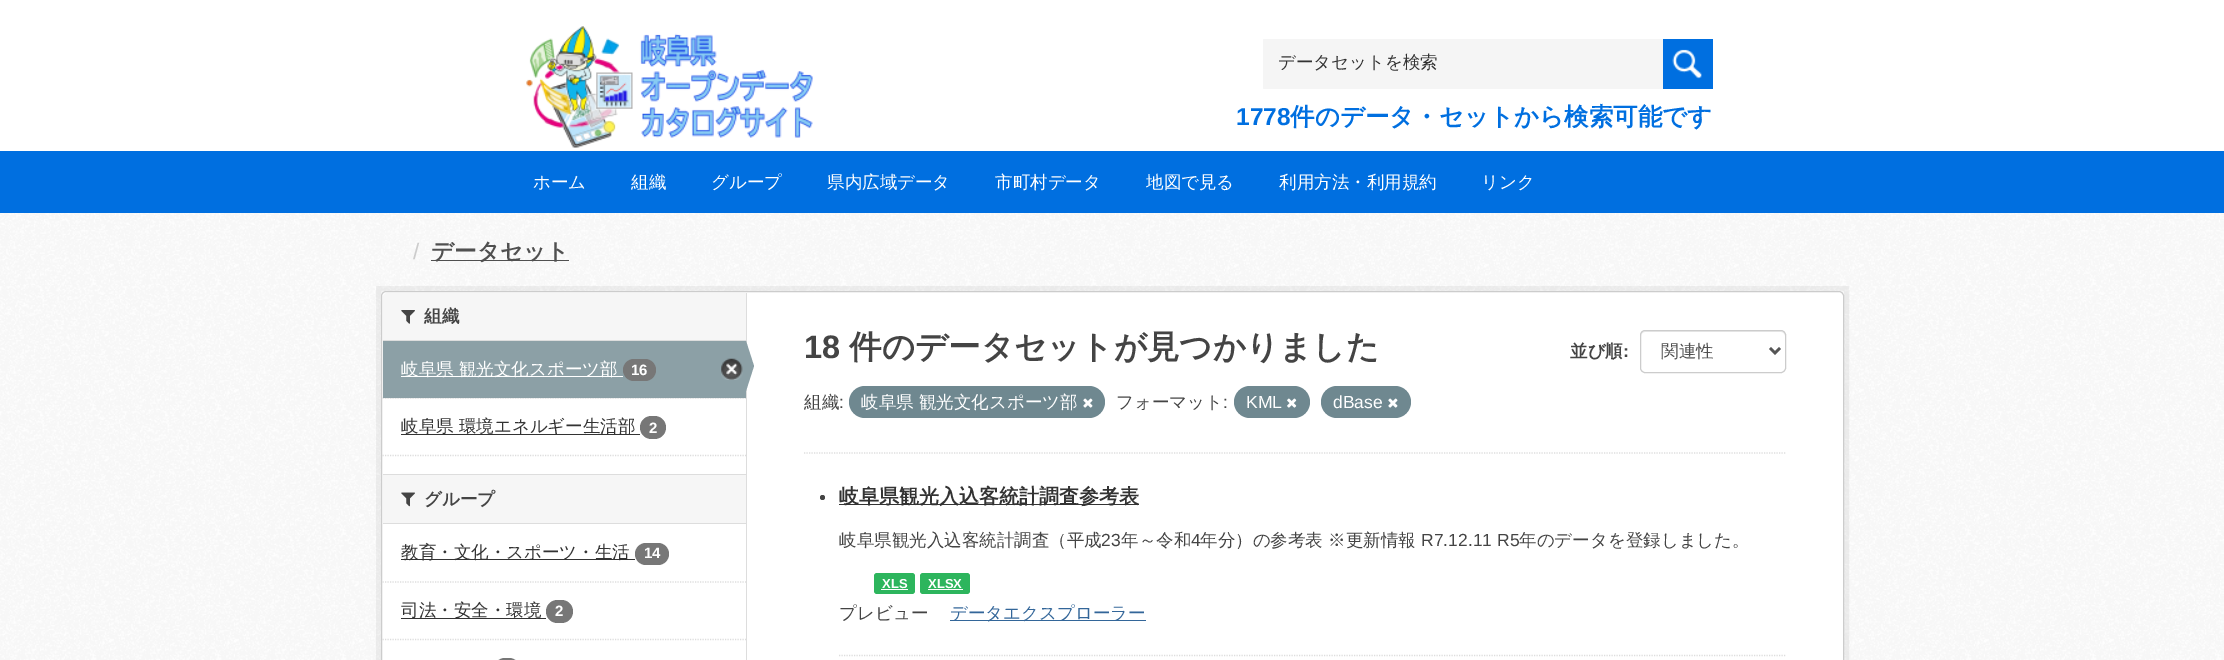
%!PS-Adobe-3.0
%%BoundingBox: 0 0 2224 660
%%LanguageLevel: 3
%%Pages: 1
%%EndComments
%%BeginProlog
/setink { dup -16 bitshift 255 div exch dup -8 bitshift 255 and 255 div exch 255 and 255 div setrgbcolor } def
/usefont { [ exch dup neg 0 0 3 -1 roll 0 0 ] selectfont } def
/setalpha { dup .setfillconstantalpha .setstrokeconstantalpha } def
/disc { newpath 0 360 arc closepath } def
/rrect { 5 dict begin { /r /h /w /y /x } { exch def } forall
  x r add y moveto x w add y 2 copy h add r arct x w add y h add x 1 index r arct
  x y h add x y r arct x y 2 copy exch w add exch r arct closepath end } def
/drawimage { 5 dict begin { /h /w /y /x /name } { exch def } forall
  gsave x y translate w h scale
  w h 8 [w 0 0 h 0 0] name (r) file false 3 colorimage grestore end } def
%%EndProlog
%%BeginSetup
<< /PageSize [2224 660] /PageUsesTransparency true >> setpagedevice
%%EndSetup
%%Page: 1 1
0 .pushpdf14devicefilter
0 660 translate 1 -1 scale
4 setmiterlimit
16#FFFFFF setink
0 0 2224 660 rectfill
(img1.raw) 526 26 287 122 drawimage
16#F5F5F5 setink
1263 39 400 50 1 rrect fill
/WenQuanYiZenHei-Medium 17.5 usefont
16#333333 setink
1278 68 moveto (データセットを検索) show
16#006FE0 setink
1663 39 50 50 rectfill
(img2.raw) 1672 49 30 30 drawimage
/LiberationSans-Bold 24.5 usefont
1236 125 moveto (1778) show
/WenQuanYiZenHei-Bold 24.5 usefont
1290 125 moveto (件のデータ・セットから検索可能です) show
0 151 2224 62 rectfill
/WenQuanYiZenHei-Medium 17.5 usefont
16#FFFFFF setink
[
    [(ホーム) 533 188]
    [(組織) 631 188]
    [(グループ) 711 188]
    [(県内広域データ) 827 188]
    [(市町村データ) 995 188]
    [(地図で見る) 1146 188]
    [(利用方法・利用規約) 1279 188]
    [(リンク) 1481 188]
] { aload pop moveto show } forall
(img3.raw) 0 213 2224 447 drawimage
/LiberationSans-Regular 22.5 usefont
16#CCCCCC setink
413 259 moveto (/) show
16#505050 setink
431 260 138 1 rectfill
/WenQuanYiZenHei-Bold 22.5 usefont
431 259 moveto (データセット) show
0.05 setalpha
16#000000 setink
5 setlinewidth
378.5 288.5 1468 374 rectstroke
1 setalpha
16#FFFFFF setink
381.5 291.5 1462 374 4.5 rrect gsave fill grestore
16#CCCCCC setink
1 setlinewidth
stroke
16#F6F6F6 setink
387 293 moveto 746 293 lineto 746 341 lineto 383 341 lineto 383 297 lineto 383 295 385 293 387 293 curveto closepath fill
16#DDDDDD setink
383 340 363 1 rectfill
(img4.raw) 401 310 14 14 drawimage
/WenQuanYiZenHei-Bold 17.5 usefont
16#444444 setink
424 322 moveto (組織) show
16#F6F6F6 setink
383 398 363 1 rectfill
16#DDDDDD setink
1.2 setlinewidth
[1.25 1.25] 0 setdash
382.5 398 moveto 746 398 lineto stroke
16#8CA0A6 setink
383 341 363 57 rectfill
16#FFFFFF setink
401 376 222 1 rectfill
/WenQuanYiZenHei-Medium 17.5 usefont
401 375 moveto (岐阜県 観光文化スポーツ部) show
16#777777 setink
623 359 33 22 11 rrect fill
/LiberationSans-Bold 15 usefont
16#FFFFFF setink
631 375 moveto (16) show
(img5.raw) 721 358 22 22 drawimage
16#DDDDDD setink
746 293 1 367 rectfill
16#8CA0A6 setink
746 391 moveto 746 341 lineto 754 366 lineto closepath fill
16#333333 setink
401 434 239 1 rectfill
/WenQuanYiZenHei-Medium 17.5 usefont
401 432 moveto (岐阜県 環境エネルギー生活部) show
16#777777 setink
640 416 26 23 11.5 rrect fill
/LiberationSans-Bold 15 usefont
16#FFFFFF setink
649 433 moveto (2) show
16#DDDDDD setink
382.5 455.5 moveto 746 455.5 lineto stroke
[
    [383 475 363 48 16#F6F6F6]
    [383 474 363 1 16#DDDDDD]
    [383 523 363 1 16#DDDDDD]
] { aload pop setink rectfill } forall
(img6.raw) 401 492 14 15 drawimage
/WenQuanYiZenHei-Bold 17.5 usefont
16#444444 setink
424 505 moveto (グループ) show
16#DDDDDD setink
382.5 582 moveto 746 582 lineto stroke
16#333333 setink
401 559 234 1 rectfill
/WenQuanYiZenHei-Medium 17.5 usefont
401 558 moveto (教育・文化・スポーツ・生活) show
16#777777 setink
635 543 34 22 11 rrect fill
/LiberationSans-Bold 15 usefont
16#FFFFFF setink
644 558 moveto (14) show
16#DDDDDD setink
382.5 639.5 moveto 746 639.5 lineto stroke
16#333333 setink
401 618 145 1 rectfill
/WenQuanYiZenHei-Medium 17.5 usefont
401 616 moveto (司法・安全・環境) show
16#777777 setink
546 600 27 23 11.5 rrect fill
/LiberationSans-Bold 15 usefont
16#FFFFFF setink
555 616 moveto (2) show
16#777777 setink
494 658 26 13 11 rrect fill
16#DDDDDD setink
804 453 moveto 1786 453 lineto stroke
/LiberationSans-Bold 32.5 usefont
16#444444 setink
804 358 moveto (18) show
/WenQuanYiZenHei-Bold 32.5 usefont
849 358 moveto (件のデータセットが見つかりました) show
/WenQuanYiZenHei-Bold 17.5 usefont
1570 357 moveto (並び順) show
/LiberationSans-Bold 17.5 usefont
1623 357 moveto (:) show
16#ECECEC setink
1645 332 moveto 1781 332 lineto 1783 332 1785 334 1785 336 curveto 1785 335 lineto 1785 333 1783 331 1781 331 curveto 1645 331 lineto 1643 331 1641 333 1641 335 curveto 1641 336 lineto 1641 334 1643 332 1645 332 curveto closepath fill
16#CCCCCC setink
1 setlinewidth
[] 0 setdash
1640.5 330.5 145 42 4.5 rrect stroke
16#555555 setink
2.5 setlinewidth
1770 348 moveto 1775 353 lineto 1780 348 lineto stroke
/WenQuanYiZenHei-Medium 17.5 usefont
16#505050 setink
1661 357 moveto (関連性) show
16#444444 setink
804 408 moveto (組織) show
/LiberationSans-Regular 17.5 usefont
839 408 moveto (:) show
16#6F8890 setink
849 386 256 32 16 rrect fill
/WenQuanYiZenHei-Medium 17.5 usefont
16#FFFFFF setink
861 408 moveto (岐阜県 観光文化スポーツ部) show
(img7.raw) 1083 398 10 10 drawimage
16#444444 setink
1116 408 moveto (フォーマット) show
/LiberationSans-Regular 17.5 usefont
1223 408 moveto (:) show
16#6F8890 setink
1234 386 76 32 16 rrect fill
16#FFFFFF setink
1246 408 moveto (KML) show
(img8.raw) 1287 398 10 10 drawimage
16#6F8890 setink
1321 386 90 32 16 rrect fill
16#FFFFFF setink
1333 408 moveto (dBase) show
(img7.raw) 1388 398 10 10 drawimage
16#DDDDDD setink
1.2 setlinewidth
[1.25 1.25] 0 setdash
839 655.5 moveto 1786 655.5 lineto stroke
16#444444 setink
822.5 497.5 2.5 disc fill
16#333333 setink
839 504 300 1 rectfill
/WenQuanYiZenHei-Bold 20 usefont
839 503 moveto (岐阜県観光入込客統計調査参考表) show
/WenQuanYiZenHei-Medium 17.5 usefont
16#444444 setink
839 546 moveto (岐阜県観光入込客統計調査（平成) show
/LiberationSans-Regular 17.5 usefont
1101 546 moveto (23) show
/WenQuanYiZenHei-Medium 17.5 usefont
1121 546 moveto (年～令和) show
/LiberationSans-Regular 17.5 usefont
1191 546 moveto (4) show
/WenQuanYiZenHei-Medium 17.5 usefont
1200 546 moveto (年分）の参考表 ※更新情報) show
/LiberationSans-Regular 17.5 usefont
1421 546 moveto (R7.12.11 R5) show
/WenQuanYiZenHei-Medium 17.5 usefont
1519 546 moveto (年のデータを登録しました。) show
16#2DB55D setink
874 573 41 21 3 rrect fill
/LiberationSans-Bold 13 usefont
16#FFFFFF setink
882 588 moveto (XLS) show
881 589 27 1 rectfill
16#2DB55D setink
920 573 50 21 3 rrect fill
16#FFFFFF setink
928 588 moveto (XLSX) show
928 589 35 1 rectfill
/WenQuanYiZenHei-Medium 17.5 usefont
16#444444 setink
839 619 moveto (プレビュー) show
16#336699 setink
950 620 196 1 rectfill
950 619 moveto (データエクスプローラー) show
.poppdf14devicefilter showpage
%%EOF
